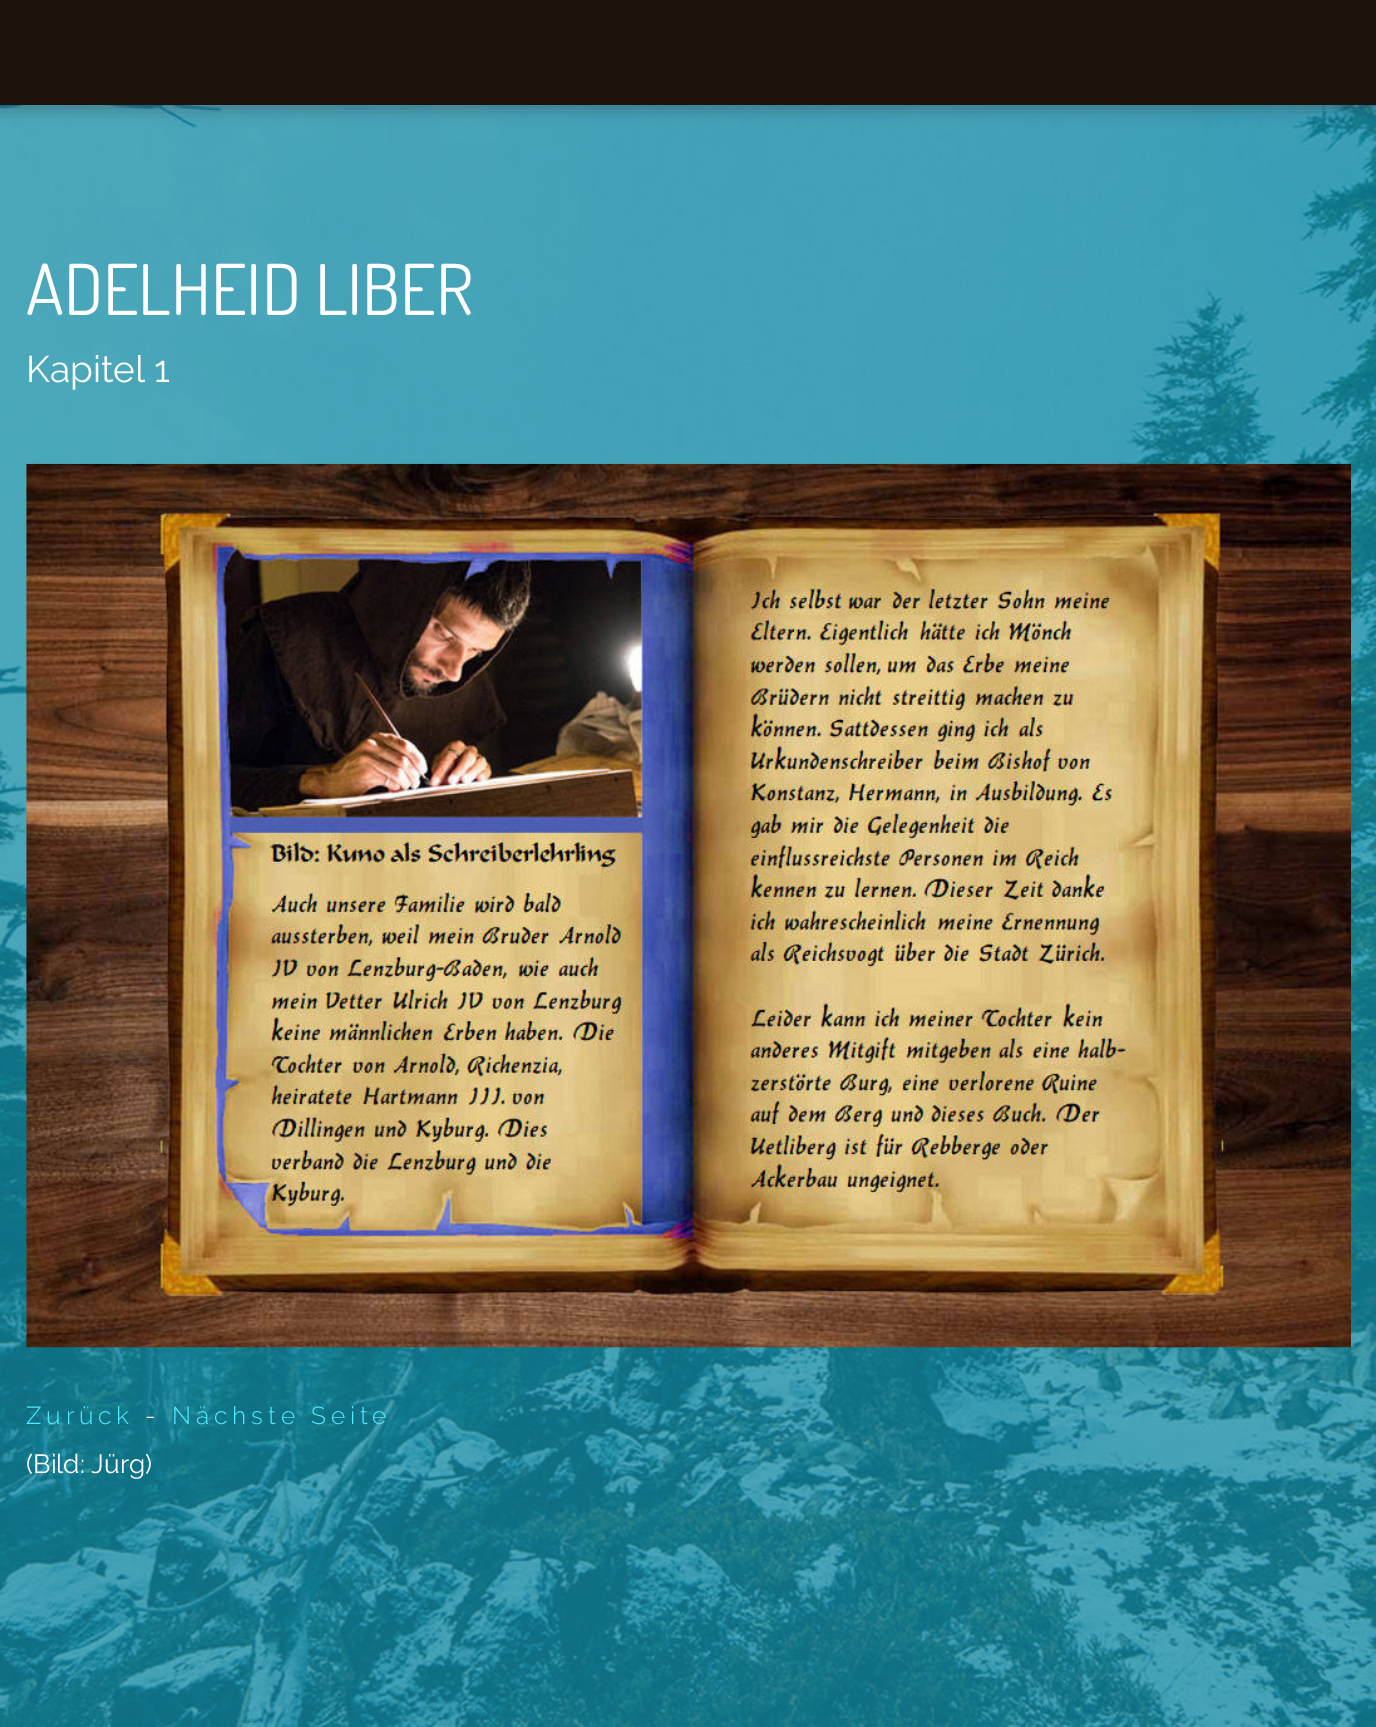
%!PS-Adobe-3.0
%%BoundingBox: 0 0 1376 1727
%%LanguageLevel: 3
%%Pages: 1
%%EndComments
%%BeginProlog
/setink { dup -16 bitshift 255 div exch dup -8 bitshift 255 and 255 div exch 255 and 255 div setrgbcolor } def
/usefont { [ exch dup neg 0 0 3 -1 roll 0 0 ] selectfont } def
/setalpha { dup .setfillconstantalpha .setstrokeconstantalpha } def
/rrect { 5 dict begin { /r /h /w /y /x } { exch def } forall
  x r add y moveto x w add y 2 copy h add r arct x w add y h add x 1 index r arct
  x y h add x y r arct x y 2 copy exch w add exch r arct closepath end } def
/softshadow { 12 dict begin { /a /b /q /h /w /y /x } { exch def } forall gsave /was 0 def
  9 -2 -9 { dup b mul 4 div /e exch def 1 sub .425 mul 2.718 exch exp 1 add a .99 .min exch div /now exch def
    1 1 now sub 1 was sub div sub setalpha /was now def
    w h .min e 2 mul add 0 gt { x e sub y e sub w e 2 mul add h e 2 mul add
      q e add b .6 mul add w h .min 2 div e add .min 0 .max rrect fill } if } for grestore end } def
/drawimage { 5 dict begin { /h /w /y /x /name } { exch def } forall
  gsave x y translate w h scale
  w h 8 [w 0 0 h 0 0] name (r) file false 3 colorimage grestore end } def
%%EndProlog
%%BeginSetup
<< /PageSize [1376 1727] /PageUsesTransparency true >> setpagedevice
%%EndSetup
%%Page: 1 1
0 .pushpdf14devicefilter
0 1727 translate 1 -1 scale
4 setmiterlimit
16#FFFFFF setink
0 0 1376 1727 rectfill
(img1.raw) 0 105 1376 1622 drawimage
16#353740 setink
0 2 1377 105 0 9 0.5 softshadow
16#1E130C setink
0 0 1376 105 rectfill
/Dosis-Regular 70 usefont
16#FFFFFF setink
26 315 moveto (ADELHEID LIBER) show
/Raleway-Regular 37 usefont
26 382 moveto (Kapitel 1) show
(img2.raw) 26 463 1325 885 drawimage
/Raleway-Light 24.5 usefont
16#4FECFF setink
26 1424 moveto 4.9 0 (Zurück) ashow
16#FFFFFF setink
145 1424 moveto 4.9 0 (-) ashow
16#4FECFF setink
172 1424 moveto 4.9 0 (Nächste Seite) ashow
/Raleway-Regular 26.25 usefont
16#FFFFFF setink
26 1473 moveto (\(Bild: Jürg\)) show
.poppdf14devicefilter showpage
%%EOF
